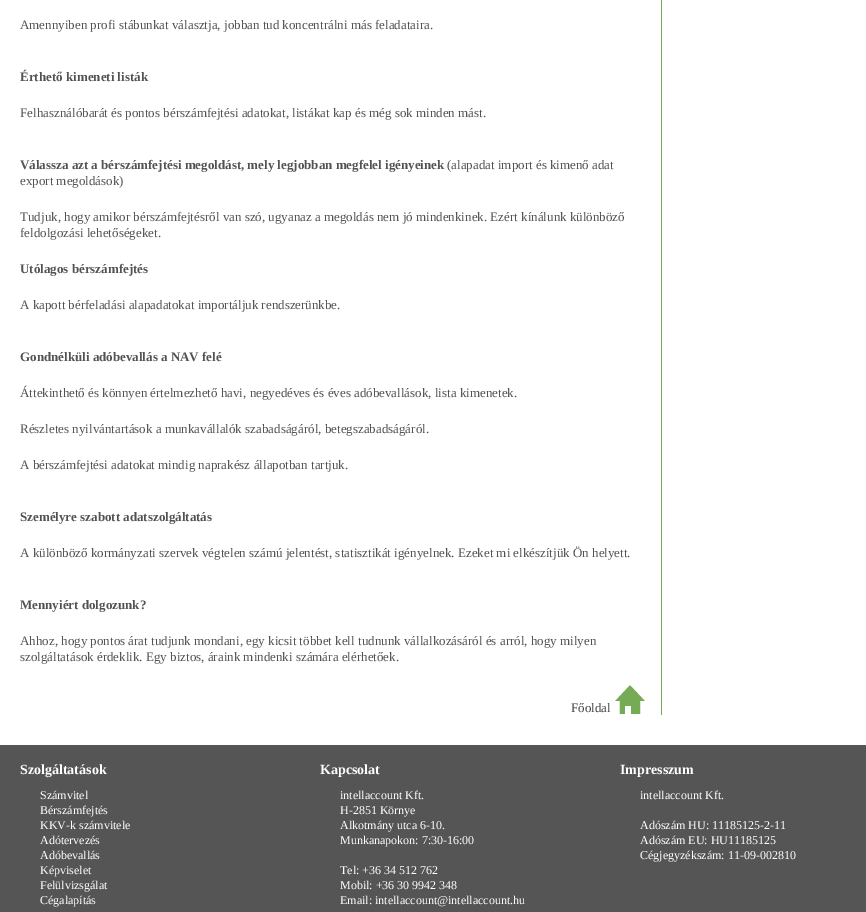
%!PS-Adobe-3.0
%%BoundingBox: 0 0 866 912
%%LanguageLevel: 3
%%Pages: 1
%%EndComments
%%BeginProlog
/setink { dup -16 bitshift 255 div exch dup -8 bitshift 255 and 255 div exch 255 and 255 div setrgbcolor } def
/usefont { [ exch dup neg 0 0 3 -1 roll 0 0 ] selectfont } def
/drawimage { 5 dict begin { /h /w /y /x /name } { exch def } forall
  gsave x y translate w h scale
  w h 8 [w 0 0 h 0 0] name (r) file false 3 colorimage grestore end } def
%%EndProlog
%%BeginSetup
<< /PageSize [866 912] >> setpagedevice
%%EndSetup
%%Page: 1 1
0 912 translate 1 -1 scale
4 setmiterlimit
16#FFFFFF setink
0 0 866 912 rectfill
16#76AB56 setink
661 0 1 715 rectfill
/LiberationSerif-Regular 13 usefont
16#515252 setink
20 29 moveto (Amennyiben profi stábunkat választja, jobban tud koncentrálni más feladataira.) show
/LiberationSerif-Bold 13 usefont
20 81 moveto (Érthető kimeneti listák) show
/LiberationSerif-Regular 13 usefont
20 117 moveto (Felhasználóbarát és pontos bérszámfejtési adatokat, listákat kap és még sok minden mást.) show
/LiberationSerif-Bold 13 usefont
20 169 moveto (Válassza azt a bérszámfejtési megoldást, mely legjobban megfelel igényeinek) show
/LiberationSerif-Regular 13 usefont
[
    [(\(alapadat import és kimenő adat) 447 169]
    [(export megoldások\)) 20 185]
    [(Tudjuk, hogy amikor bérszámfejtésről van szó, ugyanaz a megoldás nem jó mindenkinek. Ezért kínálunk különböző) 20 221]
    [(feldolgozási lehetőségeket.) 20 237]
] { aload pop moveto show } forall
/LiberationSerif-Bold 13 usefont
20 273 moveto (Utólagos bérszámfejtés) show
/LiberationSerif-Regular 13 usefont
20 309 moveto (A kapott bérfeladási alapadatokat importáljuk rendszerünkbe.) show
/LiberationSerif-Bold 13 usefont
20 361 moveto (Gondnélküli adóbevallás a NAV felé) show
/LiberationSerif-Regular 13 usefont
[
    [(Áttekinthető és könnyen értelmezhető havi, negyedéves és éves adóbevallások, lista kimenetek.) 20 397]
    [(Részletes nyilvántartások a munkavállalók szabadságáról, betegszabadságáról.) 20 433]
    [(A bérszámfejtési adatokat mindig naprakész állapotban tartjuk.) 20 469]
] { aload pop moveto show } forall
/LiberationSerif-Bold 13 usefont
20 521 moveto (Személyre szabott adatszolgáltatás) show
/LiberationSerif-Regular 13 usefont
20 557 moveto (A különböző kormányzati szervek végtelen számú jelentést, statisztikát igényelnek. Ezeket mi elkészítjük Ön helyett.) show
/LiberationSerif-Bold 13 usefont
20 609 moveto (Mennyiért dolgozunk?) show
/LiberationSerif-Regular 13 usefont
20 645 moveto (Ahhoz, hogy pontos árat tudjunk mondani, egy kicsit többet kell tudnunk vállalkozásáról és arról, hogy milyen) show
20 661 moveto (szolgáltatások érdeklik. Egy biztos, áraink mindenki számára elérhetőek.) show
(img1.raw) 615 685 30 29 drawimage
16#444444 setink
571 712 moveto (Főoldal) show
16#555555 setink
0 745 866 167 rectfill
/LiberationSerif-Bold 14 usefont
16#FFFFFF setink
20 774 moveto (Szolgáltatások) show
/LiberationSerif-Regular 12 usefont
[
    [(Számvitel) 40 799]
    [(Bérszámfejtés) 40 814]
    [(KKV-k számvitele) 40 829]
    [(Adótervezés) 40 844]
    [(Adóbevallás) 40 859]
    [(Képviselet) 40 874]
    [(Felülvizsgálat) 40 889]
    [(Cégalapítás) 40 904]
] { aload pop moveto show } forall
/LiberationSerif-Bold 14 usefont
320 774 moveto (Kapcsolat) show
/LiberationSerif-Regular 12 usefont
[
    [(intellaccount Kft.) 340 799]
    [(H-2851 Környe) 340 814]
    [(Alkotmány utca 6-10.) 340 829]
    [(Munkanapokon: 7:30-16:00) 340 844]
    [(Tel: +36 34 512 762) 340 874]
    [(Mobil: +36 30 9942 348) 340 889]
    [(Email: intellaccount@intellaccount.hu) 340 904]
] { aload pop moveto show } forall
/LiberationSerif-Bold 14 usefont
620 774 moveto (Impresszum) show
/LiberationSerif-Regular 12 usefont
[
    [(intellaccount Kft.) 640 799]
    [(Adószám HU: 11185125-2-11) 640 829]
    [(Adószám EU: HU11185125) 640 844]
    [(Cégjegyzékszám: 11-09-002810) 640 859]
] { aload pop moveto show } forall
showpage
%%EOF
